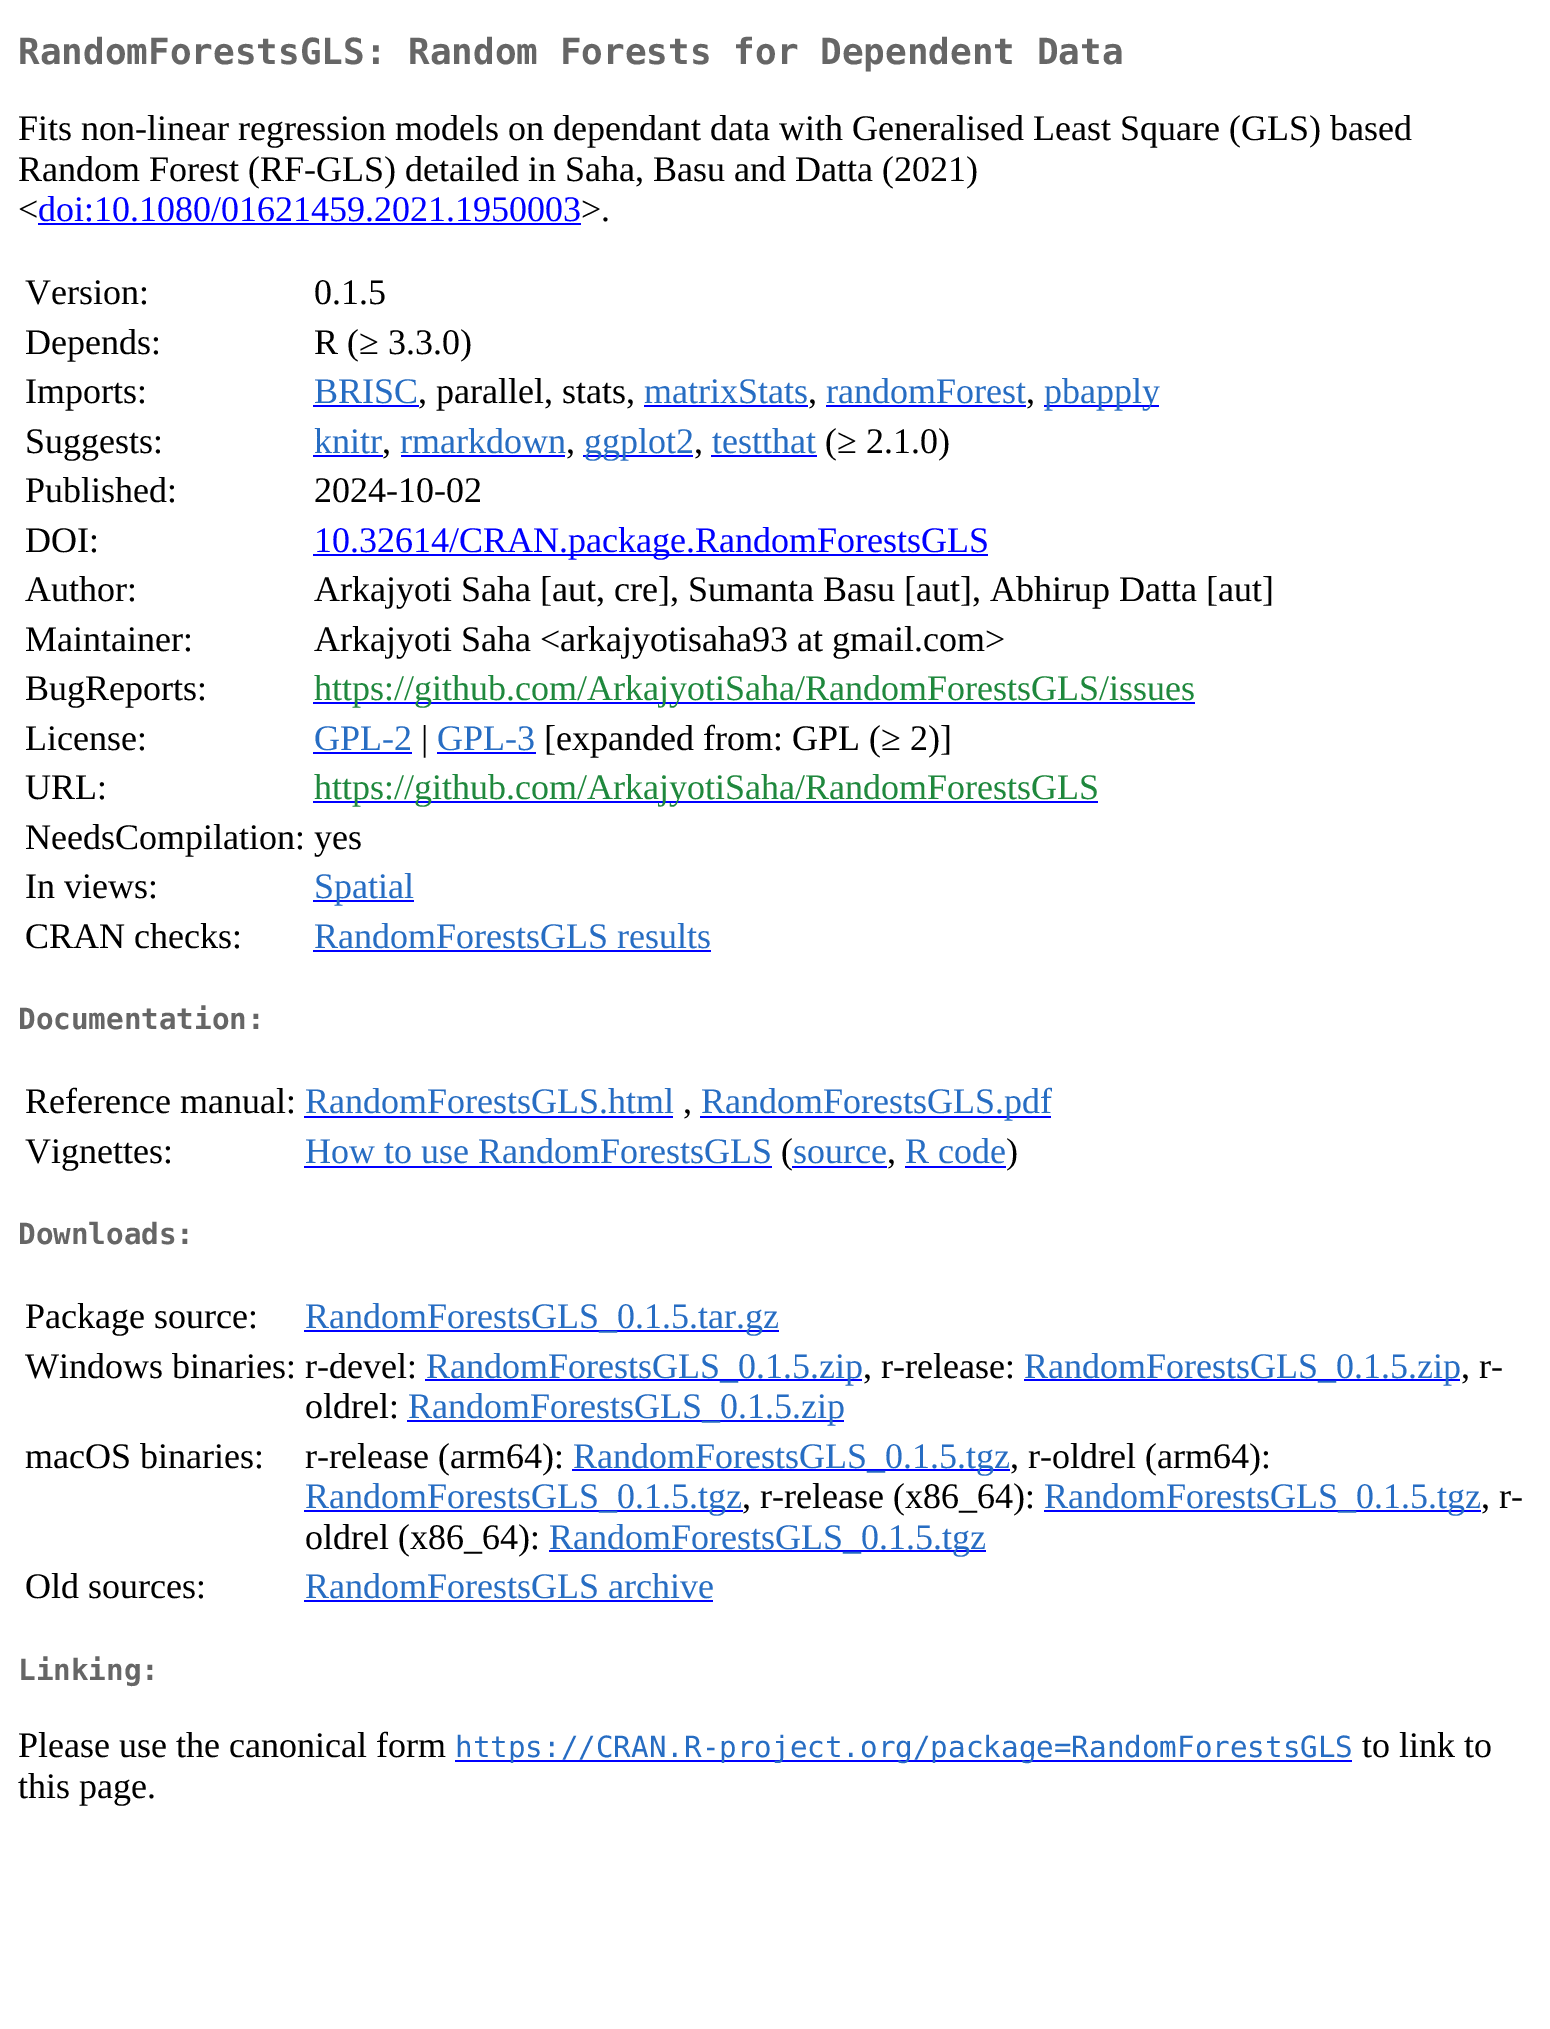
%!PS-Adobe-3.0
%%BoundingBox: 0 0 1550 2029
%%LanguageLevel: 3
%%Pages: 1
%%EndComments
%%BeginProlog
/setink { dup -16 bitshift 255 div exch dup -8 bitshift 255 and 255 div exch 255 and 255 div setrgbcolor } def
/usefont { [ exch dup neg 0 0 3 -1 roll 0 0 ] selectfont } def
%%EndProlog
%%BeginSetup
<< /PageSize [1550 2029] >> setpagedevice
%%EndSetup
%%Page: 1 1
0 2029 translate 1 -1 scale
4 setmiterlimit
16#FFFFFF setink
0 0 1550 2029 rectfill
/DejaVuSansMono-Bold 36 usefont
16#666666 setink
18 64 moveto (RandomForestsGLS: Random Forests for Dependent Data) show
/LiberationSerif-Regular 36 usefont
16#000000 setink
[
    [(Fits non-linear regression models on dependant data with Generalised Least Square \(GLS\) based) 18 140]
    [(Random Forest \(RF-GLS\) detailed in Saha, Basu and Datta \(2021\)) 18 181]
    [(<) 18 221]
] { aload pop moveto show } forall
16#0000FF setink
38 221 moveto (doi:10.1080/01621459.2021.1950003) show
38 223 543 2 rectfill
16#000000 setink
[
    [(>.) 581 221]
    [(Version:) 25 304]
    [(0.1.5) 314 304]
    [(Depends:) 25 354]
    [(R \(≥ 3.3.0\)) 314 354]
    [(Imports:) 25 403]
] { aload pop moveto show } forall
16#276DC3 setink
314 403 moveto (BRISC) show
16#0000FF setink
313 405 106 2 rectfill
16#000000 setink
418 403 moveto (, parallel, stats,) show
16#276DC3 setink
644 403 moveto (matrixStats) show
16#0000FF setink
644 405 164 2 rectfill
16#000000 setink
808 403 moveto (,) show
16#276DC3 setink
826 403 moveto (randomForest) show
16#0000FF setink
826 405 200 2 rectfill
16#000000 setink
1026 403 moveto (,) show
16#0000FF setink
1044 405 115 2 rectfill
16#276DC3 setink
1044 403 moveto (pbapply) show
16#000000 setink
25 453 moveto (Suggests:) show
16#276DC3 setink
314 453 moveto (knitr) show
16#0000FF setink
313 455 70 2 rectfill
16#000000 setink
382 453 moveto (,) show
16#276DC3 setink
400 453 moveto (rmarkdown) show
16#0000FF setink
401 455 164 2 rectfill
16#000000 setink
566 453 moveto (,) show
16#0000FF setink
583 455 110 2 rectfill
16#276DC3 setink
584 453 moveto (ggplot2) show
16#000000 setink
694 453 moveto (,) show
16#276DC3 setink
712 453 moveto (testthat) show
16#0000FF setink
711 455 106 2 rectfill
16#000000 setink
[
    [(\(≥ 2.1.0\)) 825 453]
    [(Published:) 25 502]
    [(2024-10-02) 314 502]
    [(DOI:) 25 552]
] { aload pop moveto show } forall
16#0000FF setink
313 554 675 2 rectfill
314 552 moveto (10.32614/CRAN.package.RandomForestsGLS) show
16#000000 setink
[
    [(Author:) 25 601]
    [(Arkajyoti Saha [aut, cre], Sumanta Basu [aut], Abhirup Datta [aut]) 314 601]
    [(Maintainer:) 25 651]
    [(Arkajyoti Saha <arkajyotisaha93 at gmail.com>) 314 651]
    [(BugReports:) 25 700]
] { aload pop moveto show } forall
16#0000FF setink
313 702 882 2 rectfill
16#1F883D setink
314 700 moveto (https://github.com/ArkajyotiSaha/RandomForestsGLS/issues) show
16#000000 setink
25 750 moveto (License:) show
16#276DC3 setink
314 750 moveto (GPL-2) show
16#0000FF setink
313 752 99 2 rectfill
16#000000 setink
421 750 moveto (|) show
16#276DC3 setink
437 750 moveto (GPL-3) show
16#0000FF setink
437 752 99 2 rectfill
16#000000 setink
544 750 moveto ([expanded from: GPL \(≥ 2\)]) show
25 799 moveto (URL:) show
16#0000FF setink
313 801 785 2 rectfill
16#1F883D setink
314 799 moveto (https://github.com/ArkajyotiSaha/RandomForestsGLS) show
16#000000 setink
25 849 moveto (NeedsCompilation: yes) show
25 898 moveto (In views:) show
16#0000FF setink
313 900 101 2 rectfill
16#276DC3 setink
314 898 moveto (Spatial) show
16#000000 setink
25 948 moveto (CRAN checks:) show
16#276DC3 setink
314 948 moveto (RandomForestsGLS results) show
16#0000FF setink
313 950 398 2 rectfill
/DejaVuSansMono-Bold 29.25 usefont
16#666666 setink
18 1029 moveto (Documentation:) show
/LiberationSerif-Regular 36 usefont
16#000000 setink
25 1113 moveto (Reference manual:) show
16#276DC3 setink
305 1113 moveto (RandomForestsGLS.html) show
16#0000FF setink
304 1116 369 2 rectfill
16#000000 setink
683 1113 moveto (,) show
16#0000FF setink
700 1116 351 2 rectfill
16#276DC3 setink
701 1113 moveto (RandomForestsGLS.pdf) show
16#000000 setink
25 1163 moveto (Vignettes:) show
16#276DC3 setink
305 1163 moveto (How to use RandomForestsGLS) show
16#0000FF setink
304 1166 468 2 rectfill
16#000000 setink
781 1163 moveto (\() show
16#276DC3 setink
793 1163 moveto (source) show
16#0000FF setink
792 1166 95 2 rectfill
16#000000 setink
887 1163 moveto (,) show
16#276DC3 setink
905 1163 moveto (R code) show
16#0000FF setink
905 1166 101 2 rectfill
16#000000 setink
1006 1163 moveto (\)) show
/DejaVuSansMono-Bold 29.25 usefont
16#666666 setink
18 1244 moveto (Downloads:) show
/LiberationSerif-Regular 36 usefont
16#000000 setink
25 1328 moveto (Package source:) show
16#0000FF setink
304 1330 475 2 rectfill
16#276DC3 setink
305 1328 moveto (RandomForestsGLS_0.1.5.tar.gz) show
16#000000 setink
25 1378 moveto (Windows binaries: r-devel:) show
16#0000FF setink
425 1379 437 2 rectfill
16#276DC3 setink
426 1378 moveto (RandomForestsGLS_0.1.5.zip) show
16#000000 setink
863 1378 moveto (, r-release:) show
16#0000FF setink
1024 1379 436 2 rectfill
16#276DC3 setink
1024 1378 moveto (RandomForestsGLS_0.1.5.zip) show
16#000000 setink
1461 1378 moveto (, r-) show
305 1418 moveto (oldrel:) show
16#0000FF setink
407 1420 437 2 rectfill
16#276DC3 setink
408 1418 moveto (RandomForestsGLS_0.1.5.zip) show
16#000000 setink
25 1468 moveto (macOS binaries:) show
305 1468 moveto (r-release \(arm64\):) show
16#0000FF setink
572 1469 438 2 rectfill
16#276DC3 setink
573 1468 moveto (RandomForestsGLS_0.1.5.tgz) show
16#000000 setink
1010 1468 moveto (, r-oldrel \(arm64\):) show
16#0000FF setink
304 1510 439 2 rectfill
16#276DC3 setink
305 1508 moveto (RandomForestsGLS_0.1.5.tgz) show
16#000000 setink
742 1508 moveto (, r-release \(x86_64\):) show
16#0000FF setink
1044 1510 437 2 rectfill
16#276DC3 setink
1044 1508 moveto (RandomForestsGLS_0.1.5.tgz) show
16#000000 setink
1481 1508 moveto (, r-) show
305 1549 moveto (oldrel \(x86_64\):) show
16#0000FF setink
549 1550 437 2 rectfill
16#276DC3 setink
549 1549 moveto (RandomForestsGLS_0.1.5.tgz) show
16#000000 setink
25 1598 moveto (Old sources:) show
16#276DC3 setink
305 1598 moveto (RandomForestsGLS archive) show
16#0000FF setink
304 1600 409 2 rectfill
/DejaVuSansMono-Bold 29.25 usefont
16#666666 setink
18 1680 moveto (Linking:) show
/LiberationSerif-Regular 36 usefont
16#000000 setink
18 1757 moveto (Please use the canonical form) show
16#0000FF setink
455 1760 897 2 rectfill
/DejaVuSansMono-Regular 29.25 usefont
16#276DC3 setink
455 1757 moveto (https://CRAN.R-project.org/package=RandomForestsGLS) show
/LiberationSerif-Regular 36 usefont
16#000000 setink
1362 1757 moveto (to link to) show
18 1798 moveto (this page.) show
showpage
%%EOF
